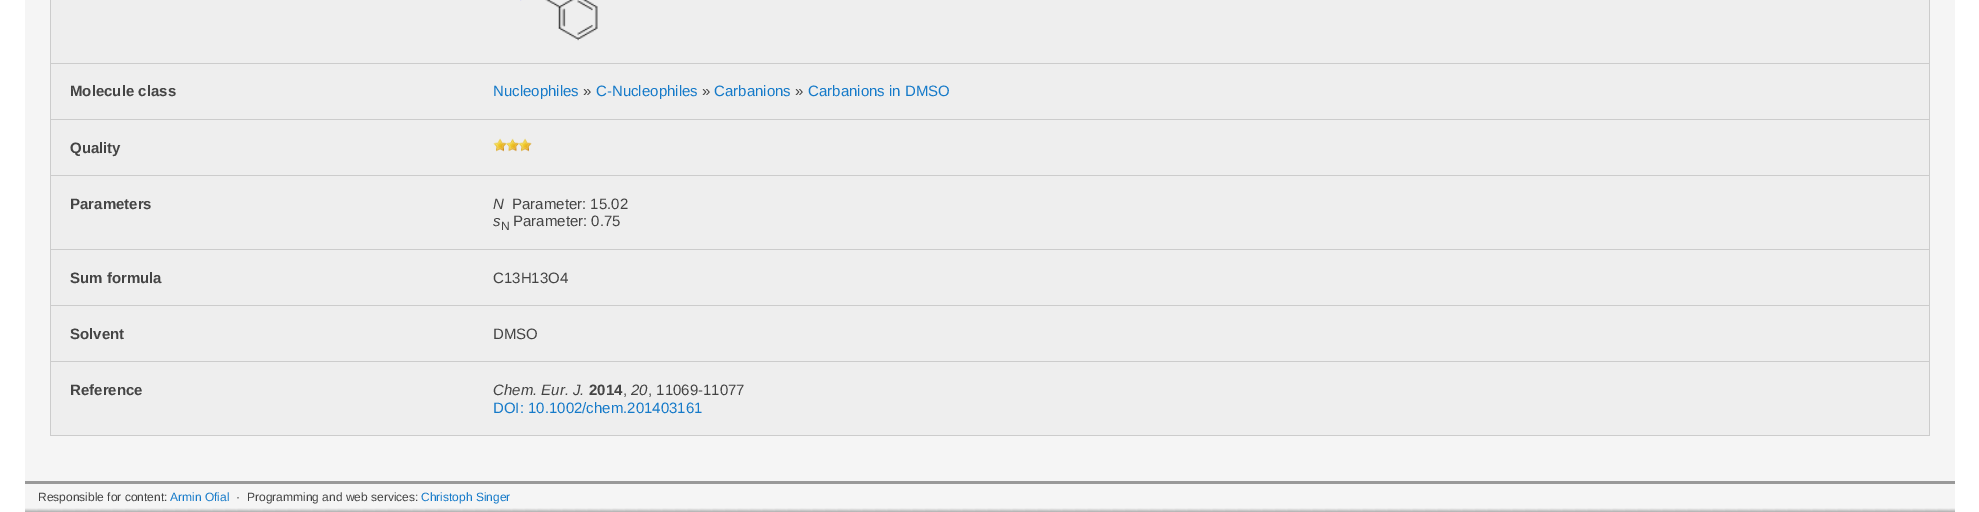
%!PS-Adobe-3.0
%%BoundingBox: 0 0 1979 512
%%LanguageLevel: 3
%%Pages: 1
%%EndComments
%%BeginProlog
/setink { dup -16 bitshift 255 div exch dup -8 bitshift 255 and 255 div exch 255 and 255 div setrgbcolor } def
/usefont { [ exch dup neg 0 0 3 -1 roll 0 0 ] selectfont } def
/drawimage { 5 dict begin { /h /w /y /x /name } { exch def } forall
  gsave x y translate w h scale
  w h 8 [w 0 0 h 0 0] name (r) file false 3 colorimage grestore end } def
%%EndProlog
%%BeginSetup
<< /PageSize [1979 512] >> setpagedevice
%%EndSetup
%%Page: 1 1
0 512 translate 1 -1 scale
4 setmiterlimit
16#FFFFFF setink
0 0 1979 512 rectfill
[
    [25 0 1930 508 16#F5F5F5]
    [1929 0 1 436 16#CCCCCC]
    [50 435 1880 1 16#CCCCCC]
    [50 0 1 436 16#CCCCCC]
    [51 0 1878 63 16#EEEEEE]
] { aload pop setink rectfill } forall
(img1.raw) 520 0 78 41 drawimage
16#CCCCCC setink
50 63 1880 1 rectfill
16#EEEEEE setink
51 64 1878 55 rectfill
/LiberationSans-Bold 15 usefont
16#444444 setink
70 96 moveto (Molecule class) show
/LiberationSans-Regular 15 usefont
16#157AC9 setink
493 96 moveto (Nucleophiles) show
16#444444 setink
583 96 moveto (») show
16#157AC9 setink
596 96 moveto (C-Nucleophiles) show
16#444444 setink
702 96 moveto (») show
16#157AC9 setink
714 96 moveto (Carbanions) show
16#444444 setink
795 96 moveto (») show
16#157AC9 setink
808 96 moveto (Carbanions in DMSO) show
16#CCCCCC setink
50 119 1880 1 rectfill
16#EEEEEE setink
51 120 1878 55 rectfill
/LiberationSans-Bold 15 usefont
16#444444 setink
70 153 moveto (Quality) show
(img2.raw) 493 138 14 14 drawimage
(img3.raw) 506 138 13 14 drawimage
(img4.raw) 518 138 14 14 drawimage
16#CCCCCC setink
50 175 1880 1 rectfill
16#EEEEEE setink
51 176 1878 73 rectfill
16#444444 setink
70 209 moveto (Parameters) show
/LiberationSans-Italic 15 usefont
493 209 moveto (N) show
/LiberationSans-Regular 15 usefont
512 209 moveto (Parameter: 15.02) show
/LiberationSans-Italic 15 usefont
493 226 moveto (s) show
/LiberationSans-Regular 12 usefont
501 230 moveto (N) show
/LiberationSans-Regular 15 usefont
513 226 moveto (Parameter: 0.75) show
16#CCCCCC setink
50 249 1880 1 rectfill
16#EEEEEE setink
51 250 1878 55 rectfill
/LiberationSans-Bold 15 usefont
16#444444 setink
70 283 moveto (Sum formula) show
/LiberationSans-Regular 15 usefont
493 283 moveto (C13H13O4) show
16#CCCCCC setink
50 305 1880 1 rectfill
16#EEEEEE setink
51 306 1878 57 rectfill
/LiberationSans-Bold 15 usefont
16#444444 setink
70 339 moveto (Solvent) show
/LiberationSans-Regular 15 usefont
493 339 moveto (DMSO) show
16#CCCCCC setink
50 361 1880 1 rectfill
16#EEEEEE setink
51 363 1878 72 rectfill
/LiberationSans-Bold 15 usefont
16#444444 setink
70 395 moveto (Reference) show
/LiberationSans-Italic 15 usefont
493 395 moveto (Chem. Eur. J.) show
/LiberationSans-Bold 15 usefont
589 395 moveto (2014) show
/LiberationSans-Regular 15 usefont
623 395 moveto (,) show
/LiberationSans-Italic 15 usefont
631 395 moveto (20) show
/LiberationSans-Regular 15 usefont
648 395 moveto (, 11069-11077) show
16#157AC9 setink
493 413 moveto (DOI: 10.1002/chem.201403161) show
(img5.raw) 25 508 1930 4 drawimage
16#999999 setink
25 481 1930 3 rectfill
/LiberationSans-Regular 12 usefont
16#444444 setink
38 501 moveto (Responsible for content:) show
16#157AC9 setink
170 501 moveto (Armin Ofial) show
16#444444 setink
236 501 moveto (·) show
247 501 moveto (Programming and web services:) show
16#157AC9 setink
421 501 moveto (Christoph Singer) show
showpage
%%EOF
